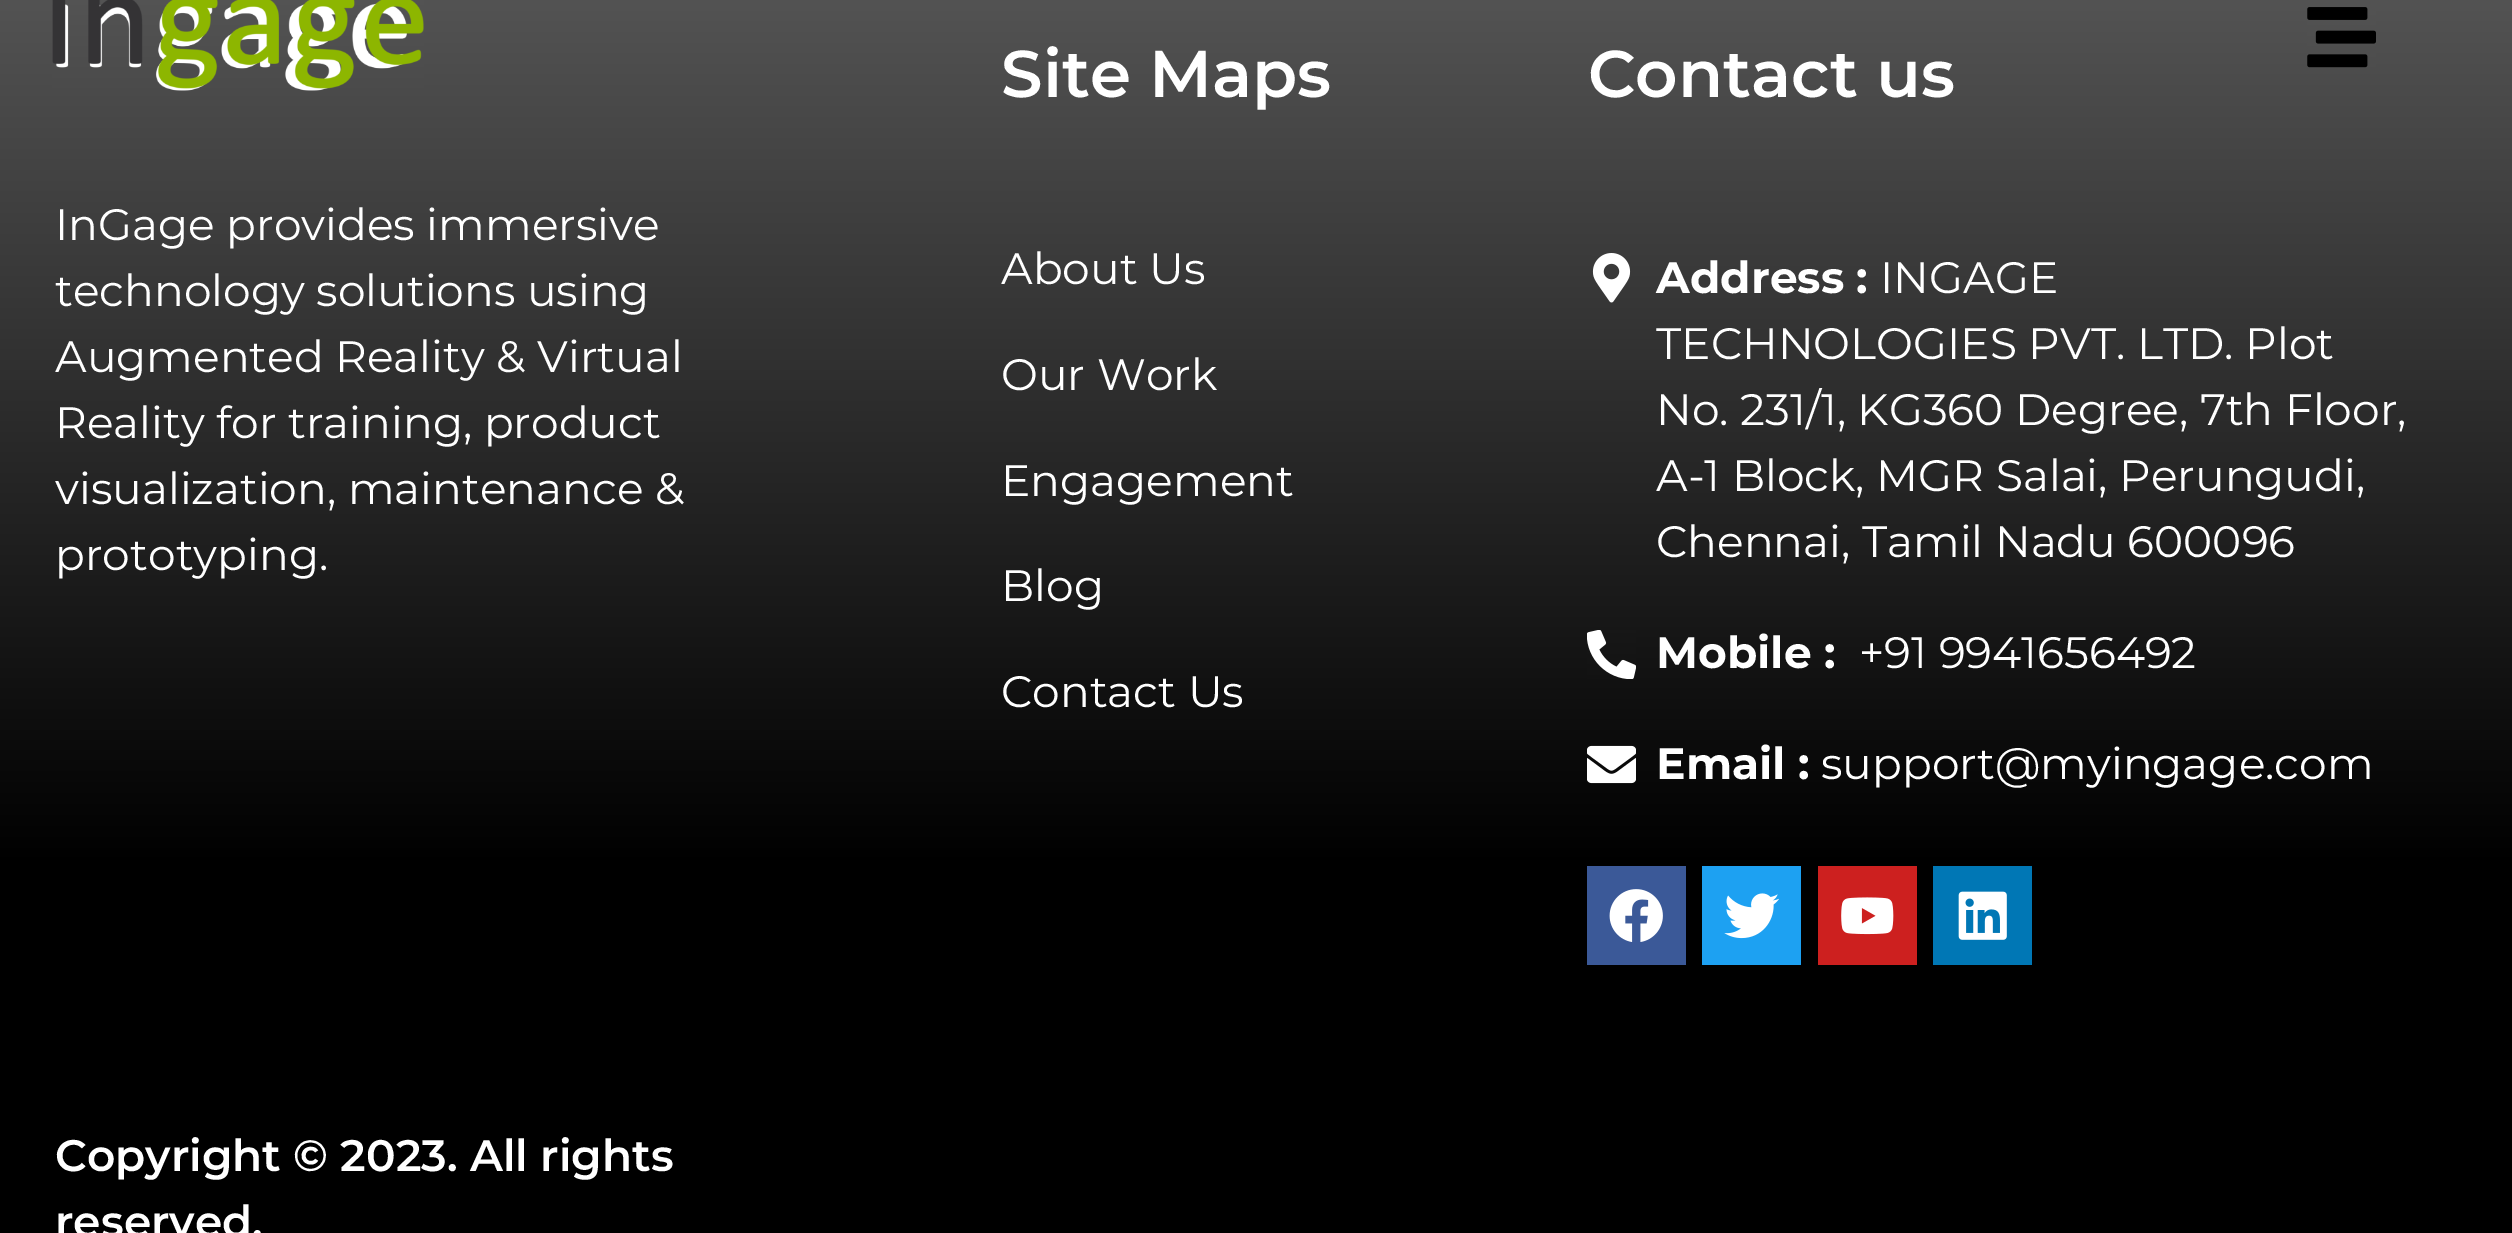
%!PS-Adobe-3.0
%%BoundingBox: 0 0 2512 1233
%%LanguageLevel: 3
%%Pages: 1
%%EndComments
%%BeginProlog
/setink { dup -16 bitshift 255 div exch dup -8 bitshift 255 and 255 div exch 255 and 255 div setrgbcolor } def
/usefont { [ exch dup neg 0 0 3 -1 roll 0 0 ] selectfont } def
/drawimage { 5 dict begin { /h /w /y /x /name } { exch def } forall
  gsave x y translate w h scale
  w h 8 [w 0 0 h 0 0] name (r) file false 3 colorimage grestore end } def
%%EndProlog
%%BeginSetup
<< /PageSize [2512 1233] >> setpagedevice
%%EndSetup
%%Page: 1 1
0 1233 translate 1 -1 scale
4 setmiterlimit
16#FFFFFF setink
0 0 2512 1233 rectfill
gsave 0 0 moveto 2512 0 lineto 2512 1233 lineto 0 1233 lineto closepath clip newpath
<< /ShadingType 2 /ColorSpace /DeviceRGB /Coords [1257 -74 1257 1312] /Extend [true true] /Function << /FunctionType 3 /Domain [0 1] /Functions [<< /FunctionType 2 /Domain [0 1] /C0 [0.353 0.353 0.353] /C1 [0 0 0] /N 1 >> << /FunctionType 2 /Domain [0 1] /C0 [0 0 0] /C1 [0 0 0] /N 1 >>] /Bounds [0.68] /Encode [0 1 0 1] >> >> shfill grestore
(img3.raw) 55 3 352 88 drawimage
(img1.raw) 52 0 372 89 drawimage
(img2.raw) 2307 7 69 61 drawimage
/Montserrat-Regular 44 usefont
[
    [(InGage provides immersive) 55 240]
    [(technology solutions using) 55 306]
    [(Augmented Reality & Virtual) 55 372]
    [(Reality for training, product) 55 438]
    [(visualization, maintenance &) 55 504]
    [(prototyping.) 55 570]
] { aload pop moveto show } forall
/Montserrat-SemiBold 44 usefont
55 1171 moveto (Copyright © 2023. All rights) show
55 1237 moveto (reserved.) show
/Montserrat-SemiBold 66 usefont
1001 97 moveto (Site Maps) show
/Montserrat-Regular 44 usefont
[
    [(About Us) 1001 284]
    [(Our Work) 1001 390]
    [(Engagement) 1001 496]
    [(Blog) 1001 601]
    [(Contact Us) 1001 707]
] { aload pop moveto show } forall
/Montserrat-SemiBold 66 usefont
1588 97 moveto (Contact us) show
(img4.raw) 1592 253 39 50 drawimage
/Montserrat-Bold 44 usefont
1656 293 moveto (Address :) show
/Montserrat-Regular 44 usefont
[
    [(INGAGE) 1880 293]
    [(TECHNOLOGIES PVT. LTD. Plot) 1656 359]
    [(No. 231/1, KG360 Degree, 7th Floor,) 1656 425]
    [(A-1 Block, MGR Salai, Perungudi,) 1656 491]
    [(Chennai, Tamil Nadu 600096) 1656 557]
] { aload pop moveto show } forall
(img5.raw) 1587 630 49 49 drawimage
/Montserrat-Bold 44 usefont
1656 668 moveto (Mobile :) show
/Montserrat-Regular 44 usefont
1859 668 moveto (+91 9941656492) show
(img6.raw) 1587 745 49 39 drawimage
/Montserrat-Bold 44 usefont
1656 779 moveto (Email :) show
/Montserrat-Regular 44 usefont
1821 779 moveto (support@myingage.com) show
16#3B5998 setink
1587 866 99 99 rectfill
(img7.raw) 1609 889 54 53 drawimage
16#1DA1F2 setink
1702 866 99 99 rectfill
(img8.raw) 1724 893 55 46 drawimage
16#CD201F setink
1818 866 99 99 rectfill
(img9.raw) 1841 897 53 38 drawimage
16#0077B5 setink
1933 866 99 99 rectfill
(img10.raw) 1958 891 49 49 drawimage
showpage
%%EOF
